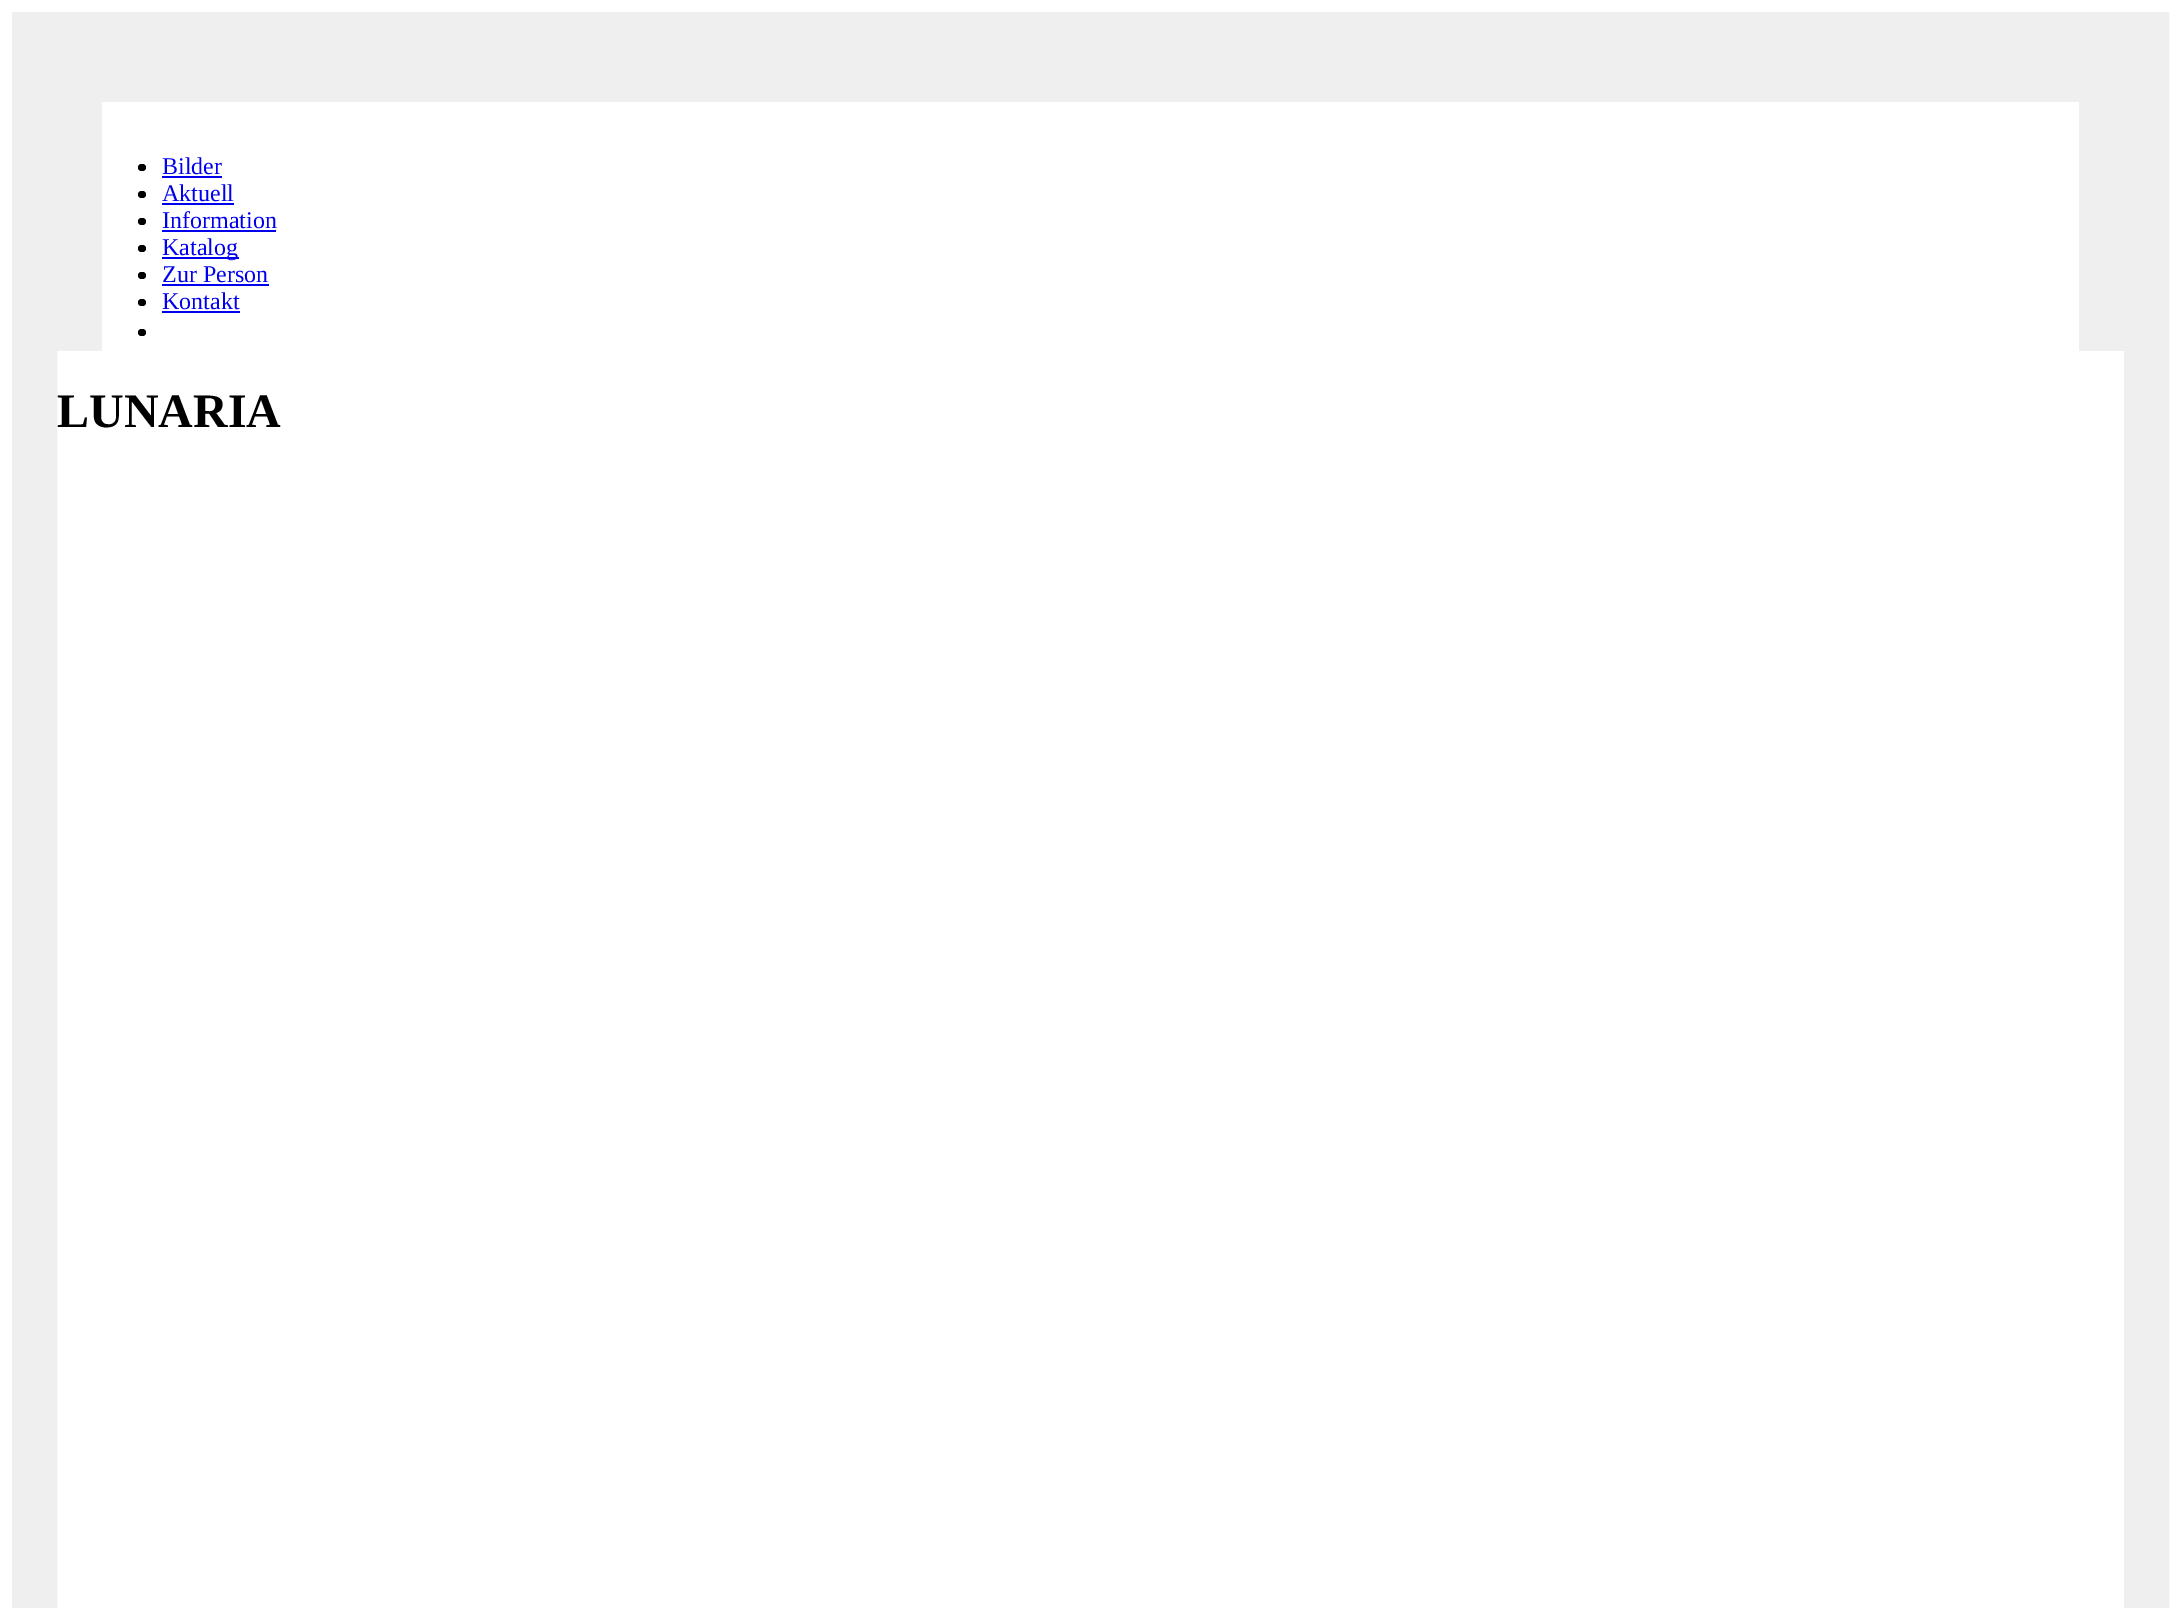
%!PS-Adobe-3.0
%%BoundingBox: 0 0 2180 1608
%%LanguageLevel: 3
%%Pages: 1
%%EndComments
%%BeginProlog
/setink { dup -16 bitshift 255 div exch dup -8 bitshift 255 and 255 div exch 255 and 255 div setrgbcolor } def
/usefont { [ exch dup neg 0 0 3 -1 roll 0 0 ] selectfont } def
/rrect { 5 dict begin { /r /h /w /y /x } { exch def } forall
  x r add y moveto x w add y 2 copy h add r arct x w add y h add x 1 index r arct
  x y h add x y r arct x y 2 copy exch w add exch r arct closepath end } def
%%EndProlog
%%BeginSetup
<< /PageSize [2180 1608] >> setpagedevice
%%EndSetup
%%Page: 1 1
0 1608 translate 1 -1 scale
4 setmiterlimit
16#FFFFFF setink
0 0 2180 1608 rectfill
16#EFEFEF setink
45 setlinewidth
34.5 34.5 2112 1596 rectstroke
[
    [102 57 1977 45 16#EFEFEF]
    [2079 57 45 294 16#EFEFEF]
    [57 57 45 294 16#EFEFEF]
] { aload pop setink rectfill } forall
16#000000 setink
138 164 8 7 3.5 rrect fill
/LiberationSerif-Regular 24 usefont
16#0000EE setink
162 174 moveto (Bilder) show
162 176 60 2 rectfill
16#000000 setink
138 191 8 7 3.5 rrect fill
16#0000EE setink
162 201 moveto (Aktuell) show
162 203 72 2 rectfill
16#000000 setink
138 218 8 7 3.5 rrect fill
16#0000EE setink
162 228 moveto (Information) show
162 230 114 2 rectfill
16#000000 setink
138 245 8 7 3.5 rrect fill
16#0000EE setink
162 257 77 2 rectfill
162 255 moveto (Katalog) show
16#000000 setink
138 272 8 7 3.5 rrect fill
16#0000EE setink
162 282 moveto (Zur Person) show
162 284 107 2 rectfill
16#000000 setink
138 299 8 7 3.5 rrect fill
16#0000EE setink
162 309 moveto (Kontakt) show
162 311 78 2 rectfill
16#000000 setink
138 329 8 7 3.5 rrect fill
/LiberationSerif-Bold 48 usefont
57 427 moveto (LUNARIA) show
showpage
%%EOF
